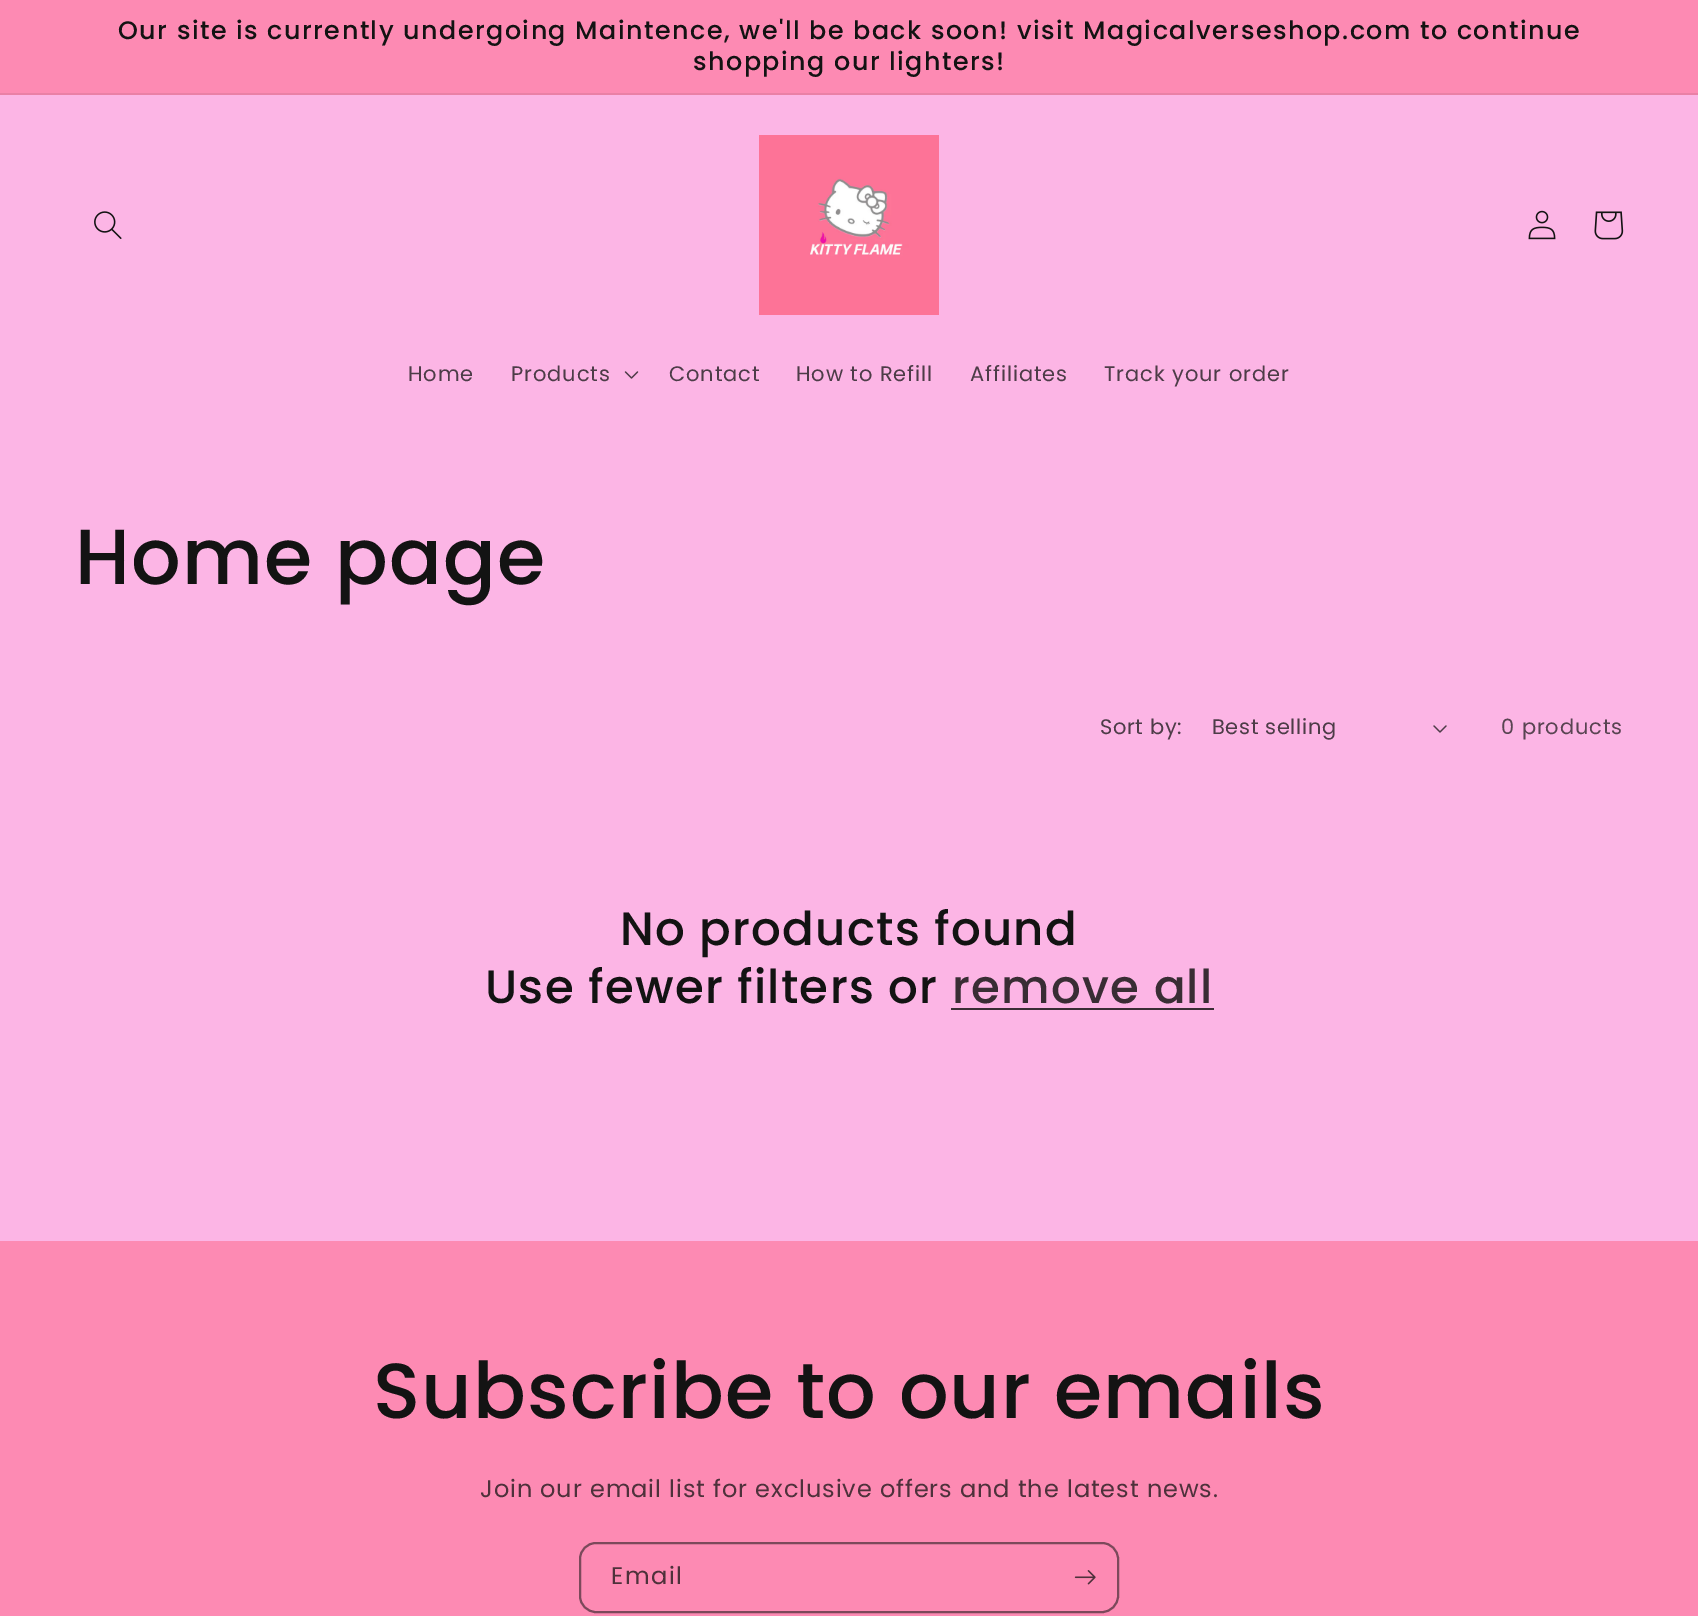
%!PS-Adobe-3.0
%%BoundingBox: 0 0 1698 1616
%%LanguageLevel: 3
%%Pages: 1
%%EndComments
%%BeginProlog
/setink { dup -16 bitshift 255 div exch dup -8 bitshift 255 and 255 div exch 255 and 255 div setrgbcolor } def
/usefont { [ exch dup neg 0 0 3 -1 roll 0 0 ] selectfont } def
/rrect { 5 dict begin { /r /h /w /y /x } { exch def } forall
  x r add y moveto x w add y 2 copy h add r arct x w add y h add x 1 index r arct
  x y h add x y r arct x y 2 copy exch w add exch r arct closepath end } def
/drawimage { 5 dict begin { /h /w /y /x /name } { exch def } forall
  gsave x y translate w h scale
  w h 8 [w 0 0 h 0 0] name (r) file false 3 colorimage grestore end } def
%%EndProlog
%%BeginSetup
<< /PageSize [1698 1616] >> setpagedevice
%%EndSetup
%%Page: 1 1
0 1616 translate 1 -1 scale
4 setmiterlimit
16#FCB5E5 setink
0 0 1698 1616 rectfill
16#FD8AB3 setink
0 0 1698 93 rectfill
16#EA80A6 setink
0 93 1698 2 rectfill
/Poppins-Medium 25.35 usefont
16#131313 setink
118 39 moveto 1.5 0 (Our site is currently undergoing Maintence, we'll be back soon! visit Magicalverseshop.com to continue) ashow
693 70 moveto 1.5 0 (shopping our lighters!) ashow
(img1.raw) 94 211 28 28 drawimage
(img2.raw) 759 135 180 180 drawimage
(img3.raw) 1528 210 28 30 drawimage
(img4.raw) 1594 211 30 29 drawimage
/Poppins-Regular 21 usefont
16#4D3C48 setink
408 381 moveto 0.9 0 (Home) ashow
511 381 moveto 0.9 0 (Products) ashow
(img5.raw) 624 371 15 8 drawimage
669 381 moveto 0.9 0 (Contact) ashow
796 381 moveto 0.9 0 (How to Refill) ashow
970 381 moveto 0.9 0 (Affiliates) ashow
1104 381 moveto 0.9 0 (Track your order) ashow
/Poppins-Medium 78 usefont
16#131313 setink
75 584 moveto 1.2 0 (Home page) ashow
/Poppins-Regular 21 usefont
16#4D3C48 setink
1100 734 moveto 0.6 0 (Sort by:) ashow
1212 734 moveto 0.6 0 (Best selling) ashow
(img6.raw) 1433 725 14 8 drawimage
16#594452 setink
1501 734 moveto 0.9 0 (0 products) ashow
/Poppins-Medium 46.75 usefont
16#131313 setink
620 945 moveto 1.2 0 (No products found) ashow
485 1003 moveto 1.2 0 (Use fewer filters or) ashow
16#392D34 setink
952 1003 moveto 1.2 0 (remove all) ashow
951 1008 263 2 rectfill
16#FD8AB3 setink
0 1241 1698 375 rectfill
/Poppins-Medium 78 usefont
16#131313 setink
373 1418 moveto 1.2 0 (Subscribe to our emails) ashow
/Poppins-Regular 24 usefont
16#4E313B setink
480 1497 moveto 0.9 0 (Join our email list for exclusive offers and the latest news.) ashow
16#7C495B setink
2 setlinewidth
580 1543 538 69 16 rrect stroke
16#4E313B setink
611 1584 moveto 1.5 0 (Email) ashow
(img7.raw) 1074 1570 22 15 drawimage
showpage
%%EOF
